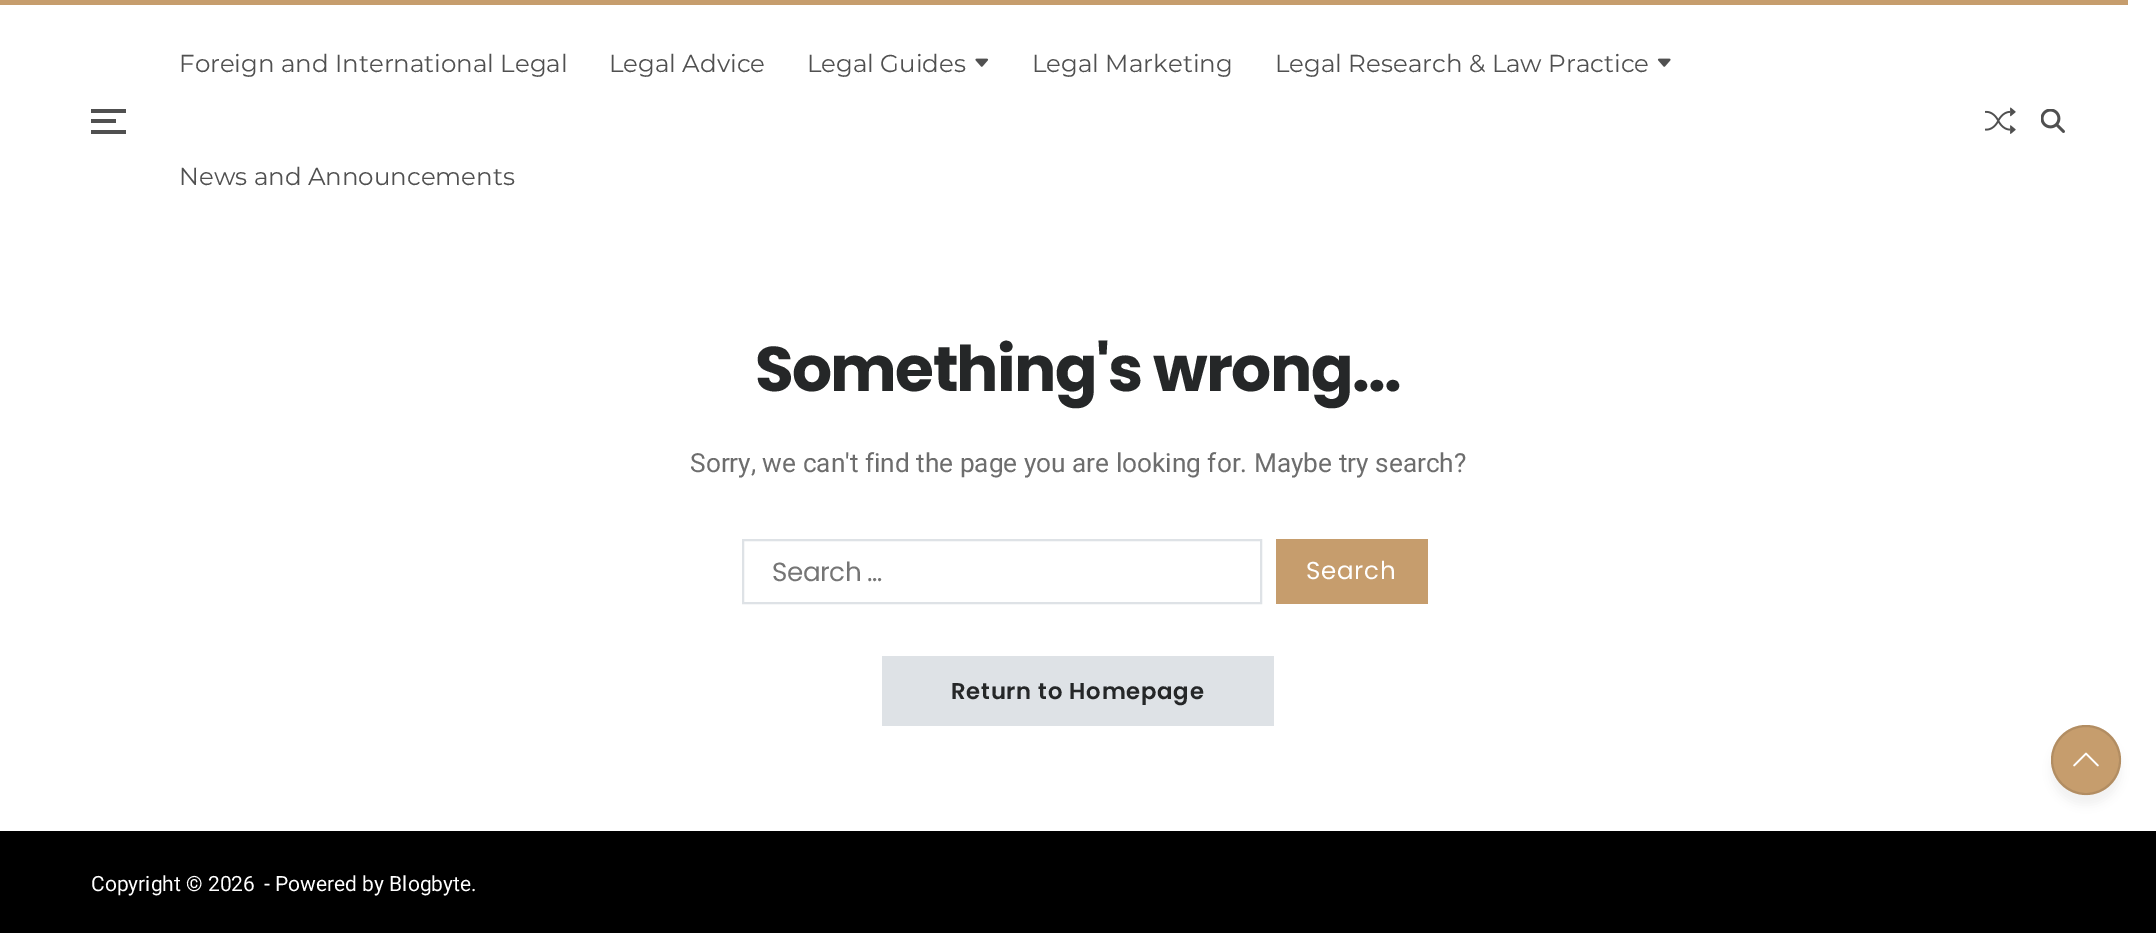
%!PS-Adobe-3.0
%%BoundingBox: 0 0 2156 933
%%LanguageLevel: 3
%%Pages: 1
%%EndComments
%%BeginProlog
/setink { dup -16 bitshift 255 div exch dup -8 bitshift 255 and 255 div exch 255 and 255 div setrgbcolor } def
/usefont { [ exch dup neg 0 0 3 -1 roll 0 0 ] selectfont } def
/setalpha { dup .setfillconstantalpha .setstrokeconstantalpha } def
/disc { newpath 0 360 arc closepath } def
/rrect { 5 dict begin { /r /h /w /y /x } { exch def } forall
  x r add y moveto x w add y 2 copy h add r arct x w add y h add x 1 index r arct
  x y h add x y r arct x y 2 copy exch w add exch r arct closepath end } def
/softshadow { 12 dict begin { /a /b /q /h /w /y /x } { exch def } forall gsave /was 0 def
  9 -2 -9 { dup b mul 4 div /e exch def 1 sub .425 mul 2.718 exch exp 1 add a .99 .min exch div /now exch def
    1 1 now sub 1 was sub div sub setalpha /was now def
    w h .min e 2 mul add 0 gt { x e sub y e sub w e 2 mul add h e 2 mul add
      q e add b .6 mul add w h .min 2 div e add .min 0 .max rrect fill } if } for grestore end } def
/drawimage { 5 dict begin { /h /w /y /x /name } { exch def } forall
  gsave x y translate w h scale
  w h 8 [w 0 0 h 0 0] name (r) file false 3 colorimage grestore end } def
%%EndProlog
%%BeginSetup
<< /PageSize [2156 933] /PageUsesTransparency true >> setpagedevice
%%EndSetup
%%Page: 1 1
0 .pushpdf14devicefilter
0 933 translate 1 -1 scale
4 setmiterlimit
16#FFFFFF setink
0 0 2156 933 rectfill
[
    [0 0 2128 5 16#C69D6D]
    [91 109 35 4 16#505050]
    [91 119 25 4 16#505050]
    [91 130 35 4 16#505050]
] { aload pop setink rectfill } forall
/Montserrat-Regular 24.5 usefont
[
    [(Foreign and International Legal) 179 72]
    [(Legal Advice) 609 72]
    [(Legal Guides) 807 72]
] { aload pop moveto show } forall
(img1.raw) 975 58 14 9 drawimage
1032 72 moveto (Legal Marketing) show
1275 72 moveto (Legal Research & Law Practice) show
(img2.raw) 1657 58 14 9 drawimage
179 185 moveto (News and Announcements) show
(img3.raw) 1985 107 31 27 drawimage
(img4.raw) 2041 109 24 24 drawimage
/Poppins-Bold 63 usefont
16#252728 setink
755 391 moveto -1.7 0 (Something's wrong...) ashow
/Roboto-Regular 26.25 usefont
16#6D6D6D setink
690 472 moveto (Sorry, we can't find the page you are looking for. Maybe try search?) show
16#DEE2E6 setink
2 setlinewidth
743 540 518 63 rectstroke
/Poppins-Regular 26.25 usefont
16#757575 setink
772 581 moveto -0.5 0 (Search …) ashow
16#C69D6D setink
1276 539 152 65 rectfill
/Poppins-Regular 24.5 usefont
16#FFFFFF setink
1306 579 moveto 0.75 0 (Search) ashow
16#DEE2E6 setink
882 656 392 70 rectfill
/Poppins-SemiBold 22.75 usefont
16#252728 setink
951 699 moveto 0.75 0 (Return to Homepage) ashow
16#000000 setink
2051 735 70 70 35 5 0.05 softshadow
16#C69D6D setink
2086 760 35 disc fill
0.1 setalpha
16#000000 setink
2086 760 34 disc stroke
1 setalpha
(img5.raw) 2073 752 26 15 drawimage
0 831 2156 102 rectfill
/Roboto-Regular 21 usefont
16#FFFFFF setink
91 891 moveto (Copyright © 2026) show
264 891 moveto (- Powered by Blogbyte.) show
.poppdf14devicefilter showpage
%%EOF
